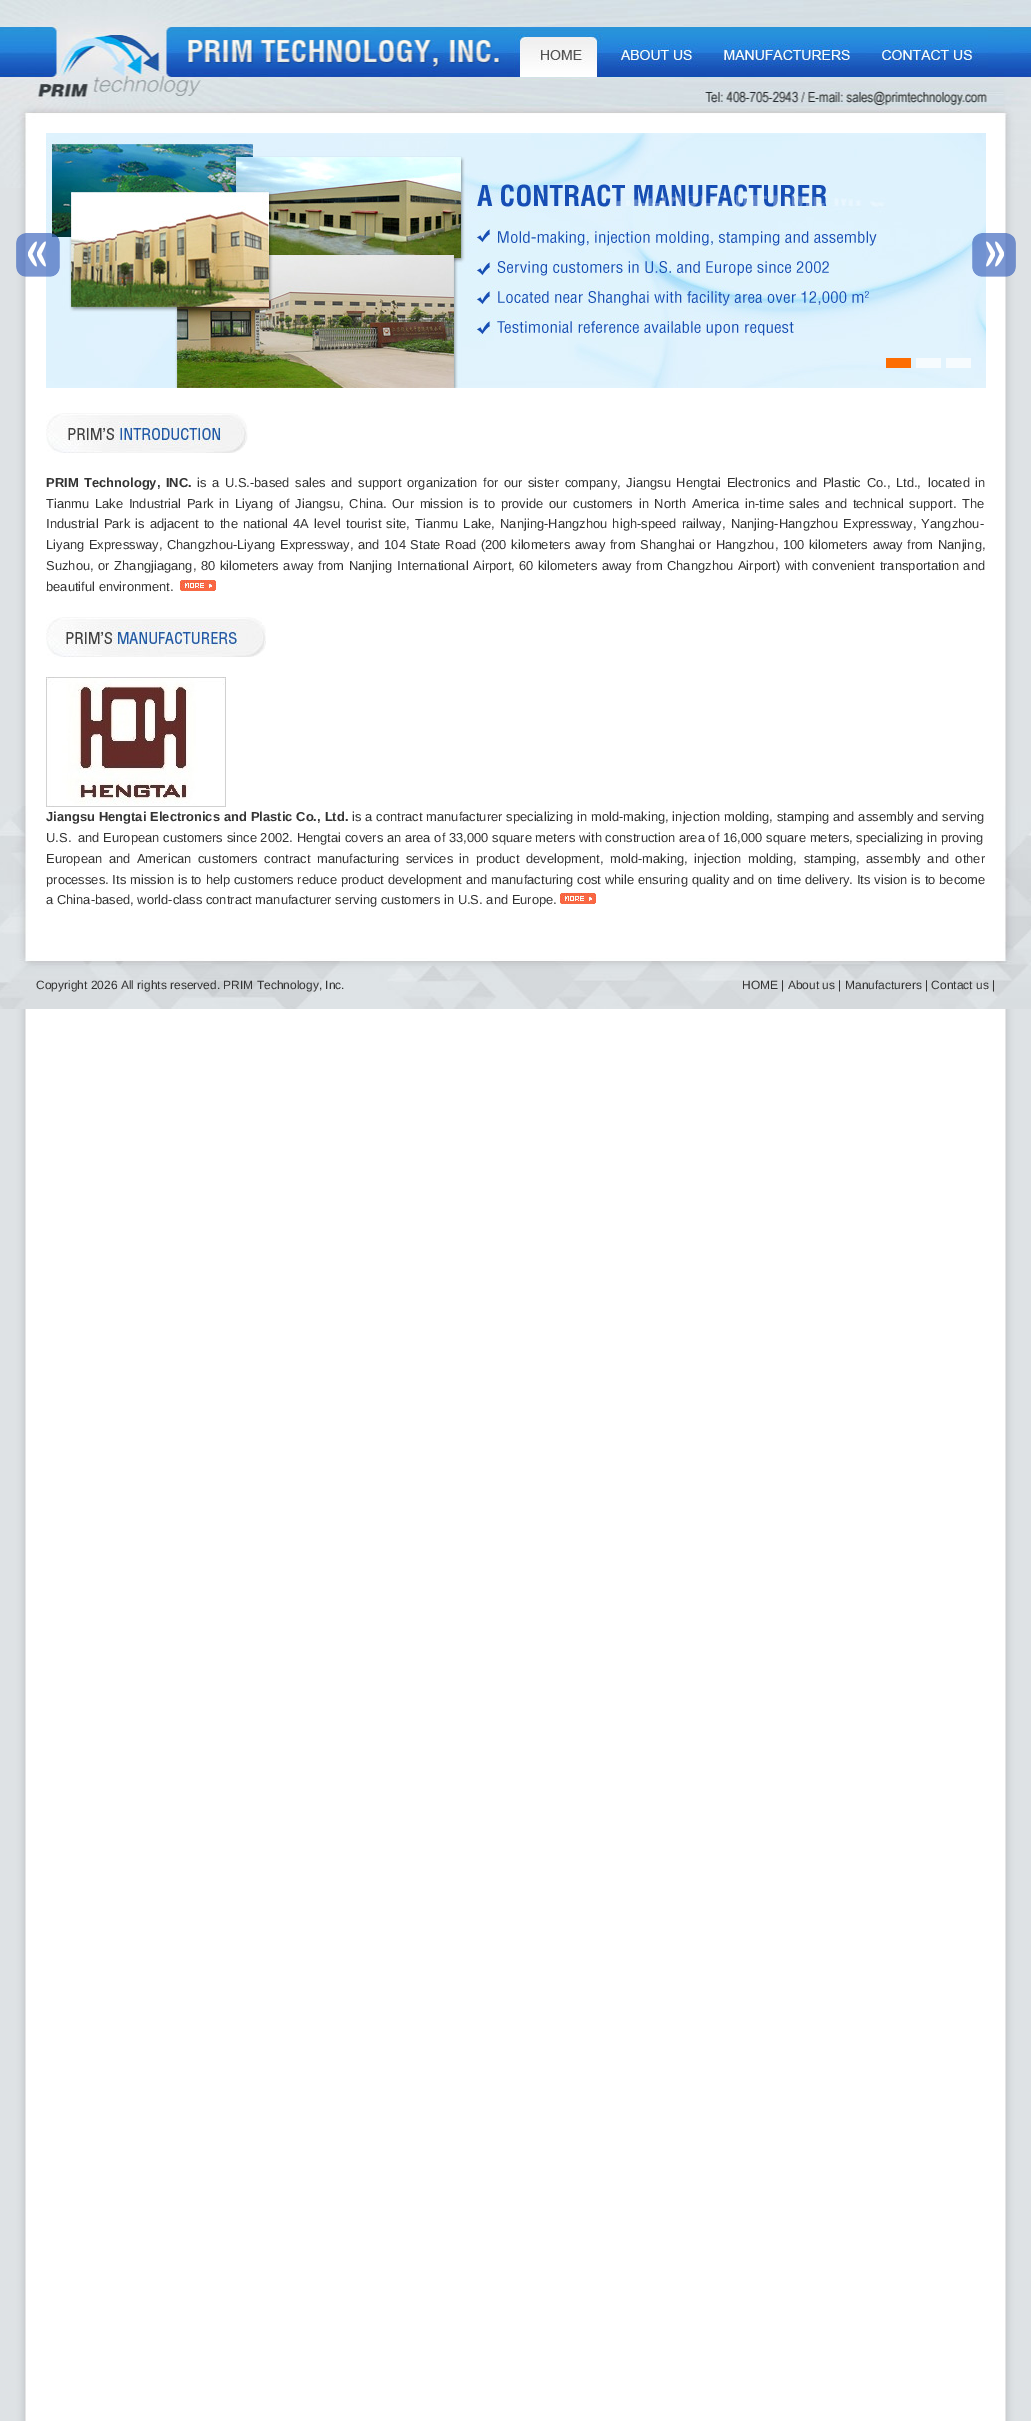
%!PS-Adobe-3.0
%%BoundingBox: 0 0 1031 2421
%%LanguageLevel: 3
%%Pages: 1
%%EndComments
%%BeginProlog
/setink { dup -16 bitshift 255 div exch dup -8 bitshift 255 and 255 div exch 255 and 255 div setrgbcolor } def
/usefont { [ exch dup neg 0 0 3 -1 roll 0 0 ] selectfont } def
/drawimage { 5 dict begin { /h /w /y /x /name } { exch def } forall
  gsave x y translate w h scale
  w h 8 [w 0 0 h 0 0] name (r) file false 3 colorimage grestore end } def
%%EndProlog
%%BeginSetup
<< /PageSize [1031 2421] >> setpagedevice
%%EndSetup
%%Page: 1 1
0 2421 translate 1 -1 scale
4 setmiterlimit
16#FFFFFF setink
0 0 1031 2421 rectfill
(img1.raw) 0 188 1031 2233 drawimage
(img2.raw) 0 0 1031 188 drawimage
(img3.raw) 514 27 89 50 drawimage
(img4.raw) 603 27 106 50 drawimage
(img5.raw) 709 27 157 50 drawimage
(img6.raw) 866 27 122 50 drawimage
(img8.raw) 46 133 940 255 drawimage
(img7.raw) 16 233 44 44 drawimage
(img9.raw) 972 233 44 44 drawimage
[
    [886 358 25 10 16#FD6D02]
    [916 358 25 10 16#F6FBFE]
    [946 358 25 10 16#F6FBFE]
] { aload pop setink rectfill } forall
(img10.raw) 0 806 1031 203 drawimage
(img11.raw) 46 413 202 40 drawimage
/LiberationSans-Bold 12.95 usefont
16#333333 setink
46 487 moveto 2 0 32 (PRIM Technology, INC.) widthshow
/LiberationSans-Regular 12.95 usefont
197 487 moveto 2 0 32 (is a U.S.-based sales and support organization for our sister company, Jiangsu Hengtai Electronics and Plastic Co., Ltd.,) widthshow
928 487 moveto 2 0 32 (located in) widthshow
46 508 moveto 2.1 0 32 (Tianmu Lake Industrial Park in Liyang of Jiangsu, China. Our mission is to provide our customers in North America in-time sales and technical support. The) widthshow
46 528 moveto 1.5 0 32 (Industrial Park is adjacent to the national 4A level tourist site, Tianmu Lake, Nanjing-Hangzhou high-speed railway, Nanjing-Hangzhou Expressway, Yangzhou-) widthshow
46 549 moveto 1 0 32 (Liyang Expressway, Changzhou-Liyang Expressway,) widthshow
358 549 moveto 1 0 32 (and 104 State Road \(200 kilometers away from Shanghai or Hangzhou, 100 kilometers away from Nanjing,) widthshow
46 570 moveto 1 0 32 (Suzhou, or Zhangjiagang, 80 kilometers away from Nanjing International Airport,) widthshow
519 570 moveto 1 0 32 (60 kilometers away from Changzhou Airport\) with convenient transportation and) widthshow
46 591 moveto (beautiful environment.) show
(img12.raw) 180 580 36 11 drawimage
(img13.raw) 46 617 220 40 drawimage
(img14.raw) 46 677 180 130 drawimage
/LiberationSans-Bold 12.95 usefont
46 821 moveto 0.25 0 32 (Jiangsu Hengtai Electronics and Plastic Co., Ltd.) widthshow
/LiberationSans-Regular 12.95 usefont
352 821 moveto 0.25 0 32 (is a contract manufacturer specializing in mold-making, injection molding, stamping and assembly and serving) widthshow
46 842 moveto (U.S.) show
78 842 moveto 0.1 0 32 (and European customers since 2002. Hengtai covers an area of 33,000 square meters with construction area of 16,000 square meters, specializing in proving) widthshow
46 863 moveto 2.9 0 32 (European and American customers contract) widthshow
317 863 moveto 2.9 0 32 (manufacturing services in product development, mold-making, injection molding, stamping, assembly and other) widthshow
46 884 moveto 0.25 0 32 (processes. Its mission is to help customers reduce product development and manufacturing cost while ensuring quality and on time delivery. Its vision is to become) widthshow
46 904 moveto (a China-based, world-class contract manufacturer serving customers in U.S. and Europe.) show
(img12.raw) 560 893 36 11 drawimage
/LiberationSans-Regular 12 usefont
36 989 moveto (Copyright 2026 All rights reserved. PRIM Technology, Inc.) show
742 989 moveto (HOME | About us | Manufacturers | Contact us |) show
showpage
%%EOF
